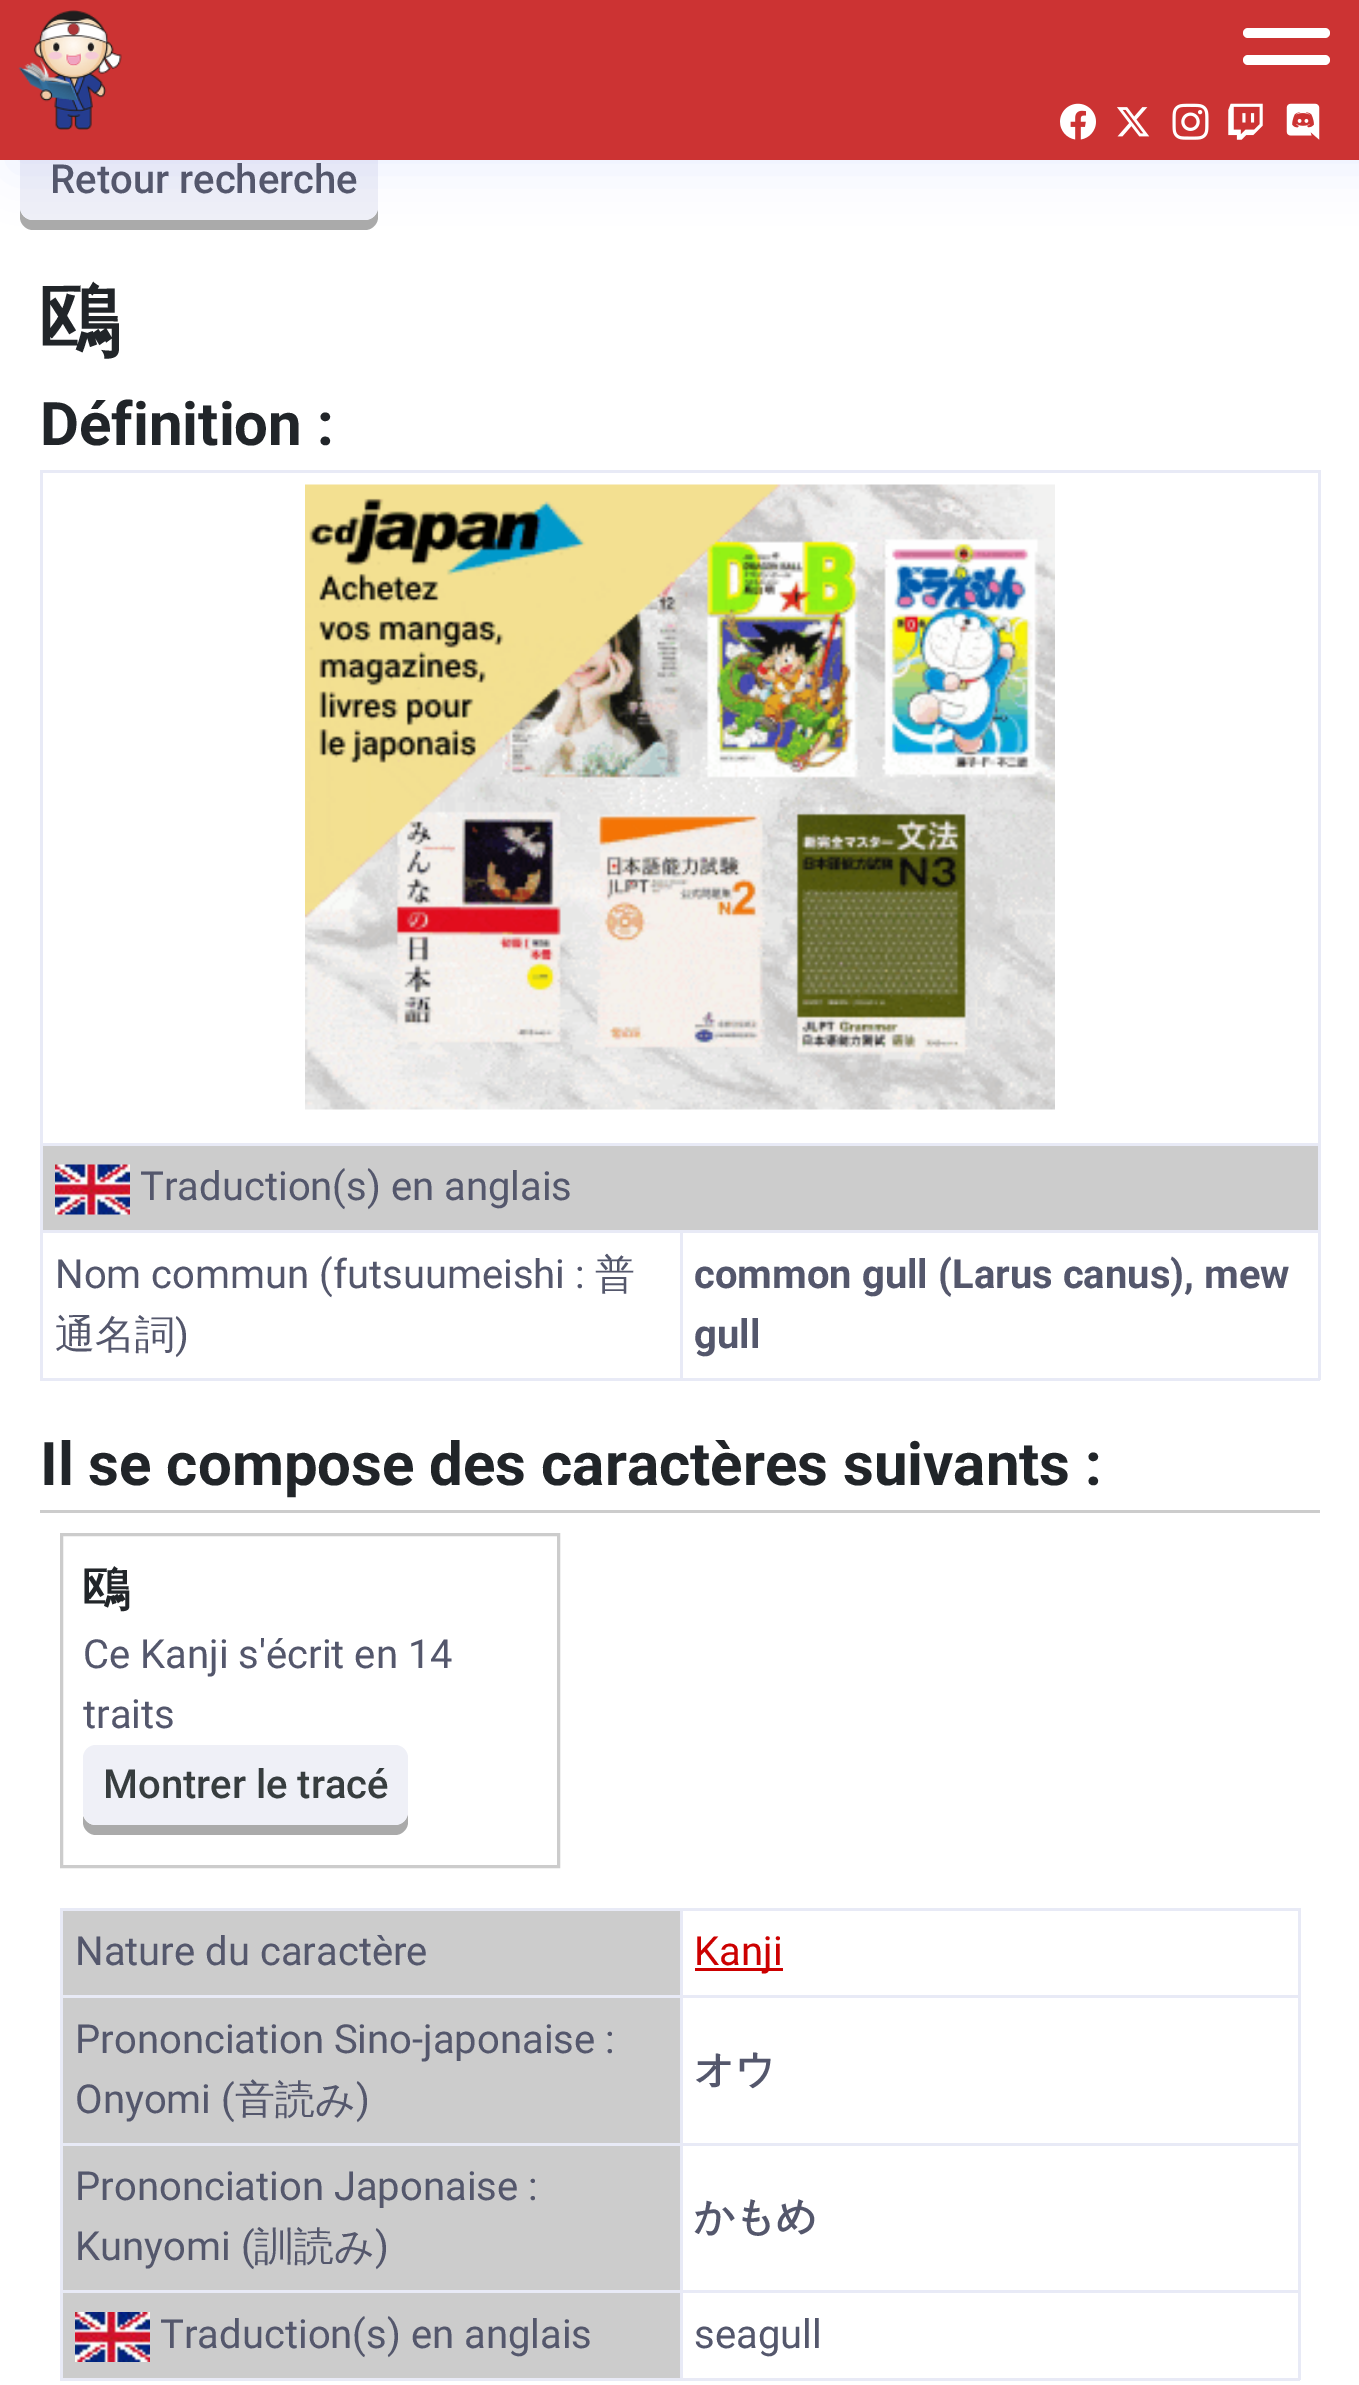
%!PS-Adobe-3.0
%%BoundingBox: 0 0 1359 2385
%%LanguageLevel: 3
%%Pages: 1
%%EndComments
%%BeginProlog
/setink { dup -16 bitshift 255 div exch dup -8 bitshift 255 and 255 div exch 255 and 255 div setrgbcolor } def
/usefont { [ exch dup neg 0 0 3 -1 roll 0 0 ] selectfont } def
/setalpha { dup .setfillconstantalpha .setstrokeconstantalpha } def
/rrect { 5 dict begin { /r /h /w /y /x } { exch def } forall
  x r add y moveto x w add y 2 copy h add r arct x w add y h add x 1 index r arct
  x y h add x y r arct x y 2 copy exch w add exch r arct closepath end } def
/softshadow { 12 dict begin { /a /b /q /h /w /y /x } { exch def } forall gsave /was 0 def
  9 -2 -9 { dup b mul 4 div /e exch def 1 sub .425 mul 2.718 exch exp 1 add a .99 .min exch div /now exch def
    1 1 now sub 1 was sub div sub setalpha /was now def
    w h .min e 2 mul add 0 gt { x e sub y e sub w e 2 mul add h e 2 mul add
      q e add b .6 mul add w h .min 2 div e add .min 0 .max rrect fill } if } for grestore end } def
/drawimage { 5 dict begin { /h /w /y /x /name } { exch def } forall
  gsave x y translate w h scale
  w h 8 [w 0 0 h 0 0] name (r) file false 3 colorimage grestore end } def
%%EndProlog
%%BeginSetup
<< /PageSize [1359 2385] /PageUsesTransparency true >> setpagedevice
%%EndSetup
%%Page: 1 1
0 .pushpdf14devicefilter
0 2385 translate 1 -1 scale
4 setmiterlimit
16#FFFFFF setink
0 0 1359 2385 rectfill
16#AAAAAA setink
20 208 moveto 20 217 lineto 20 224 26 230 33 230 curveto 365 230 lineto 372 230 378 224 378 217 curveto 378 163 lineto 378 159 lineto 378 208 lineto 378 214 372 220 365 220 curveto 32 220 lineto 26 220 20 214 20 208 curveto closepath fill
16#EFF0F7 setink
20 140 358 80 13 rrect fill
16#425FFF setink
10 10 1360 160 0 25 0.1 softshadow
16#CC3333 setink
0 0 1359 160 rectfill
(img1.raw) 18 10 104 120 drawimage
16#FFFFFF setink
1243 28 87 10 5 rrect fill
1243 55 87 10 5 rrect fill
(img2.raw) 1060 103 36 37 drawimage
(img3.raw) 1117 107 33 30 drawimage
(img4.raw) 1172 103 37 37 drawimage
(img5.raw) 1228 103 35 37 drawimage
(img6.raw) 1286 103 34 37 drawimage
/Roboto-Medium 40 usefont
16#54576C setink
50 193 moveto (Retour recherche) show
/WenQuanYiZenHei-Bold 80 usefont
16#212529 setink
40 348 moveto (鴎) show
/Roboto-Bold 60 usefont
40 445 moveto (Définition :) show
[
    [40 470 1280 3 16#E8EAF6]
    [40 1143 1280 3 16#E8EAF6]
    [680 1230 640 3 16#E8EAF6]
    [1318 1230 3 150 16#E8EAF6]
    [1318 1143 3 90 16#E8EAF6]
    [1318 470 3 675 16#E8EAF6]
    [680 1378 640 3 16#E8EAF6]
    [680 1230 3 150 16#E8EAF6]
    [40 1230 643 3 16#E8EAF6]
    [40 1378 643 3 16#E8EAF6]
    [40 1230 3 150 16#E8EAF6]
    [40 1143 3 90 16#E8EAF6]
    [40 470 3 675 16#E8EAF6]
] { aload pop setink rectfill } forall
(img7.raw) 305 484 750 626 drawimage
16#CCCCCC setink
43 1146 1275 84 rectfill
(img8.raw) 55 1164 75 51 drawimage
/Roboto-Regular 40 usefont
16#54576C setink
140 1200 moveto (Traduction\(s\) en anglais) show
55 1288 moveto (Nom commun \(futsuumeishi :) show
/WenQuanYiZenHei-Medium 40 usefont
595 1288 moveto (普) show
55 1348 moveto (通名詞) show
/Roboto-Regular 40 usefont
175 1348 moveto (\)) show
/Roboto-Bold 40 usefont
694 1288 moveto (common gull \(Larus canus\), mew) show
694 1348 moveto (gull) show
/Roboto-Bold 60 usefont
16#212529 setink
40 1485 moveto (Il se compose des caractères suivants :) show
16#CCCCCC setink
40 1510 1280 3 rectfill
3 setlinewidth
61.5 1534.5 497 332 rectstroke
/WenQuanYiZenHei-Bold 47 usefont
16#212529 setink
83 1605 moveto (鴎) show
/Roboto-Regular 40 usefont
16#54576C setink
83 1668 moveto (Ce Kanji s'écrit en 14) show
83 1728 moveto (traits) show
16#AAAAAA setink
83 1816 moveto 83 1822 lineto 83 1829 89 1835 96 1835 curveto 395 1835 lineto 402 1835 408 1829 408 1822 curveto 408 1768 lineto 408 1764 lineto 408 1812 lineto 408 1819 402 1825 395 1825 curveto 95 1825 lineto 89 1825 85 1821 83 1816 curveto closepath fill
16#EFF0F7 setink
83 1745 325 80 13 rrect fill
/Roboto-Medium 40 usefont
16#373D3F setink
103 1798 moveto (Montrer le tracé) show
[
    [63 1911 617 84 16#CCCCCC]
    [680 1908 620 3 16#E8EAF6]
    [680 1995 620 3 16#E8EAF6]
    [680 2143 620 3 16#E8EAF6]
    [680 2290 620 3 16#E8EAF6]
    [1298 2290 3 90 16#E8EAF6]
    [680 2378 620 3 16#E8EAF6]
    [680 2290 3 90 16#E8EAF6]
    [60 2290 623 3 16#E8EAF6]
    [680 2143 3 150 16#E8EAF6]
    [60 2143 623 3 16#E8EAF6]
    [680 1995 3 150 16#E8EAF6]
    [60 1995 623 3 16#E8EAF6]
    [680 1908 3 90 16#E8EAF6]
    [60 1908 623 3 16#E8EAF6]
    [60 2378 623 3 16#E8EAF6]
    [60 2290 3 90 16#E8EAF6]
    [60 2143 3 150 16#E8EAF6]
    [60 1995 3 150 16#E8EAF6]
    [60 1908 3 90 16#E8EAF6]
] { aload pop setink rectfill } forall
/Roboto-Regular 40 usefont
16#54576C setink
75 1965 moveto (Nature du caractère) show
[
    [1298 2143 3 150 16#E8EAF6]
    [1298 1995 3 150 16#E8EAF6]
    [1298 1908 3 90 16#E8EAF6]
    [695 1968 88 3 16#CC0000]
] { aload pop setink rectfill } forall
694 1965 moveto (Kanji) show
16#CCCCCC setink
63 1998 617 145 rectfill
16#54576C setink
75 2053 moveto (Prononciation Sino-japonaise :) show
75 2113 moveto (Onyomi \() show
/WenQuanYiZenHei-Medium 40 usefont
235 2113 moveto (音読み) show
/Roboto-Regular 40 usefont
356 2113 moveto (\)) show
/WenQuanYiZenHei-Bold 40 usefont
694 2083 moveto (オウ) show
16#CCCCCC setink
63 2146 617 144 rectfill
/Roboto-Regular 40 usefont
16#54576C setink
75 2200 moveto (Prononciation Japonaise :) show
75 2260 moveto (Kunyomi \() show
/WenQuanYiZenHei-Medium 40 usefont
254 2260 moveto (訓読み) show
/Roboto-Regular 40 usefont
375 2260 moveto (\)) show
/WenQuanYiZenHei-Bold 40 usefont
694 2230 moveto (かもめ) show
16#CCCCCC setink
63 2293 617 85 rectfill
(img9.raw) 75 2312 75 50 drawimage
/Roboto-Regular 40 usefont
16#54576C setink
160 2348 moveto (Traduction\(s\) en anglais) show
694 2348 moveto (seagull) show
.poppdf14devicefilter showpage
%%EOF
